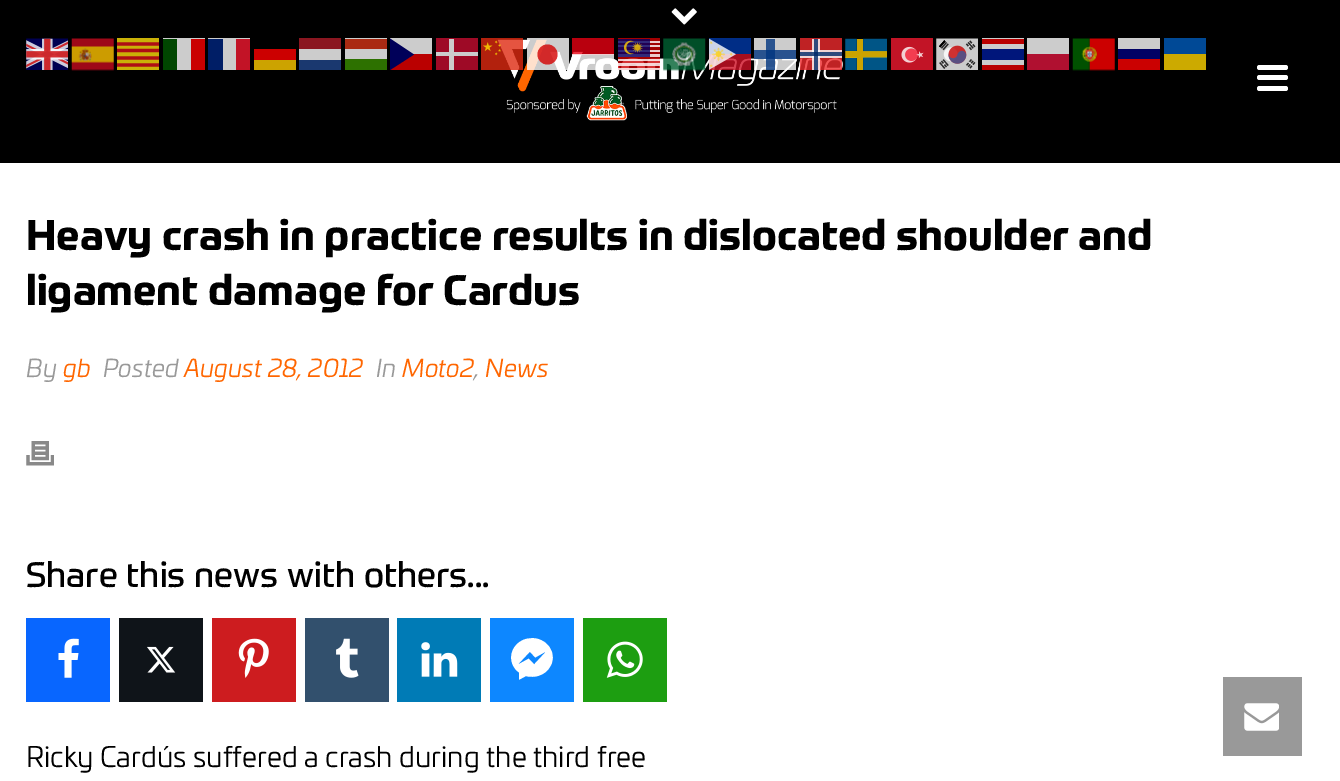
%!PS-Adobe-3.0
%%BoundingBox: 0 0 1340 781
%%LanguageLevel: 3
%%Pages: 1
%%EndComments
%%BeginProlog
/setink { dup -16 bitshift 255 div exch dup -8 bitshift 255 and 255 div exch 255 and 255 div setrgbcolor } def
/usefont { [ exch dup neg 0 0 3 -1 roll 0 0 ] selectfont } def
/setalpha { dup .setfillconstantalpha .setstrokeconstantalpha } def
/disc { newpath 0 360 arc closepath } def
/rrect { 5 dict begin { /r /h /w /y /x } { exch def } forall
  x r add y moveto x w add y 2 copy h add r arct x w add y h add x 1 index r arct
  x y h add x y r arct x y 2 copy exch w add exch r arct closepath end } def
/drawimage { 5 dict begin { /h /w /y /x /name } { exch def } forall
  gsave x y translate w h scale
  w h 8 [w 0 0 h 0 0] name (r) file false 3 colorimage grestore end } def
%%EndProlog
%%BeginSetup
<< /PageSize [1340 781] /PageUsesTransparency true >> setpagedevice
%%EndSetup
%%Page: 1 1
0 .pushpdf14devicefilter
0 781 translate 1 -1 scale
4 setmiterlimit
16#FFFFFF setink
0 0 1340 781 rectfill
16#000000 setink
0 0 1340 163 rectfill
(img1.raw) 26 38 42 32 drawimage
(img2.raw) 71 38 43 33 drawimage
[
    [117 38 42 32 16#CAB107]
    [163 38 42 32 16#CCCCCC]
    [208 38 42 32 16#CCCCCC]
    [299 38 42 11 16#8B1620]
    [345 38 42 21 16#CCCCCC]
    [390 38 42 16 16#CCCCCC]
    [163 39 14 31 16#004600]
    [191 39 14 31 16#CA0000]
    [208 39 15 31 16#001E66]
    [236 39 14 31 16#C21326]
    [345 39 42 10 16#AA2A12]
    [390 54 42 16 16#BA0000]
] { aload pop setink rectfill } forall
16#000059 setink
390 38.5 moveto 414 54.5 lineto 390 70 lineto closepath fill
16#9E0A26 setink
436 38 42 32 rectfill
(img12.raw) 497 39 346 82 drawimage
(img3.raw) 481 38 42 32 drawimage
0.8 setalpha
16#FFFFFF setink
527 38 42 32 rectfill
16#E70011 setink
572 38 42 17 rectfill
1 setalpha
(img4.raw) 618 38 42 32 drawimage
(img5.raw) 663 38 43 33 drawimage
(img6.raw) 709 38 42 32 drawimage
0.8 setalpha
16#FFFFFF setink
754 38 42 32 rectfill
16#EF2B2D setink
800 38 42 32 rectfill
1 setalpha
(img7.raw) 845 38 42 32 drawimage
(img8.raw) 891 38 42 32 drawimage
(img9.raw) 936 38 42 32 drawimage
16#CCCCCC setink
982 38 42 27 rectfill
1027 38 42 16 rectfill
(img10.raw) 1072 38 43 33 drawimage
[
    [1118 38 42 11 16#CCCCCC]
    [1164 38 42 16 16#004996]
    [449 39 5 31 16#CCCCCC]
] { aload pop setink rectfill } forall
0.8 setalpha
[
    [754 50 42 9 16#003580]
    [766 39 9 31 16#003580]
    [812 39 8 31 16#FFFFFF]
] { aload pop setink rectfill } forall
1 setalpha
16#AE0E15 setink
3.3 setlinewidth
117 44 moveto 159 44 lineto 159 50.5 moveto 117 50.5 lineto 117 58 moveto 159 58 lineto 159 65 moveto 117 65 lineto stroke
16#CC0000 setink
254 49 42 11 rectfill
16#CCCCCC setink
299 49 42 11 rectfill
0.8 setalpha
16#D30000 setink
547.5 54.5 10 disc fill
[
    [800 50 42 8 16#FFFFFF]
    [814 39 4 31 16#002868]
] { aload pop setink rectfill } forall
1 setalpha
[
    [982 49 42 11 16#00167B]
] { aload pop setink rectfill } forall
16#B90000 setink
982 39 moveto 1024 39 lineto 1024 44 lineto 982 44 lineto closepath 982 65 moveto 1024 65 lineto 1024 70 lineto 982 70 lineto closepath eofill
[
    [436 52 42 4 16#CCCCCC]
    [1118 49 42 10 16#010165]
    [254 60 42 10 16#CCA300]
    [299 60 42 10 16#1A386F]
    [345 59 42 11 16#2D7100]
] { aload pop setink rectfill } forall
0.8 setalpha
[
    [572 54 42 16 16#FFFFFF]
    [800 52 42 4 16#002868]
] { aload pop setink rectfill } forall
1 setalpha
[
    [1027 54 42 16 16#B01030]
    [1118 59 42 11 16#CB0101]
    [1164 54 42 16 16#CCAA00]
] { aload pop setink rectfill } forall
(img11.raw) 671 8 26 17 drawimage
16#FFFFFF setink
1257 65 31 5 2.5 rrect fill
1257 75 31 5 2.5 rrect fill
1257 86 31 5 2.5 rrect fill
/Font-Bold 42 usefont
16#000000 setink
26 250 moveto (Heavy crash in practice results in dislocated shoulder and) show
26 305 moveto (ligament damage for Cardus) show
/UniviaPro-Italic 24.5 usefont
16#999999 setink
26 377 moveto (By) show
16#FF6600 setink
63 377 moveto (gb) show
16#999999 setink
103 377 moveto (Posted) show
16#FF6600 setink
184 377 moveto (August 28, 2012) show
16#999999 setink
376 377 moveto (In) show
16#FF6600 setink
402 377 moveto (Moto2) show
16#999999 setink
474 377 moveto (,) show
16#FF6600 setink
485 377 moveto (News) show
(img13.raw) 26 441 28 25 drawimage
/Font-Regular 35 usefont
16#000000 setink
26 587 moveto (Share this news with others...) show
16#0866FF setink
26 618 84 84 rectfill
(img14.raw) 58 638 21 40 drawimage
16#0F1419 setink
119 618 84 84 rectfill
(img15.raw) 147 646 29 27 drawimage
16#CD1C1F setink
212 618 84 84 rectfill
(img16.raw) 238 638 31 40 drawimage
16#32506D setink
305 618 84 84 rectfill
(img17.raw) 336 638 23 40 drawimage
16#007BB6 setink
397 618 84 84 rectfill
(img18.raw) 421 642 37 35 drawimage
16#0D87FF setink
490 618 84 84 rectfill
/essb-Regular 42 usefont
16#FFFFFF setink
511 680 moveto (*) show
16#1D9E11 setink
583 618 84 84 rectfill
(img19.raw) 606 641 37 37 drawimage
/UniviaPro-Regular 28 usefont
16#000000 setink
26 767 moveto (Ricky Cardús suffered a crash during the third free) show
16#999999 setink
1223 677 79 79 rectfill
(img20.raw) 1244 703 35 28 drawimage
.poppdf14devicefilter showpage
%%EOF
